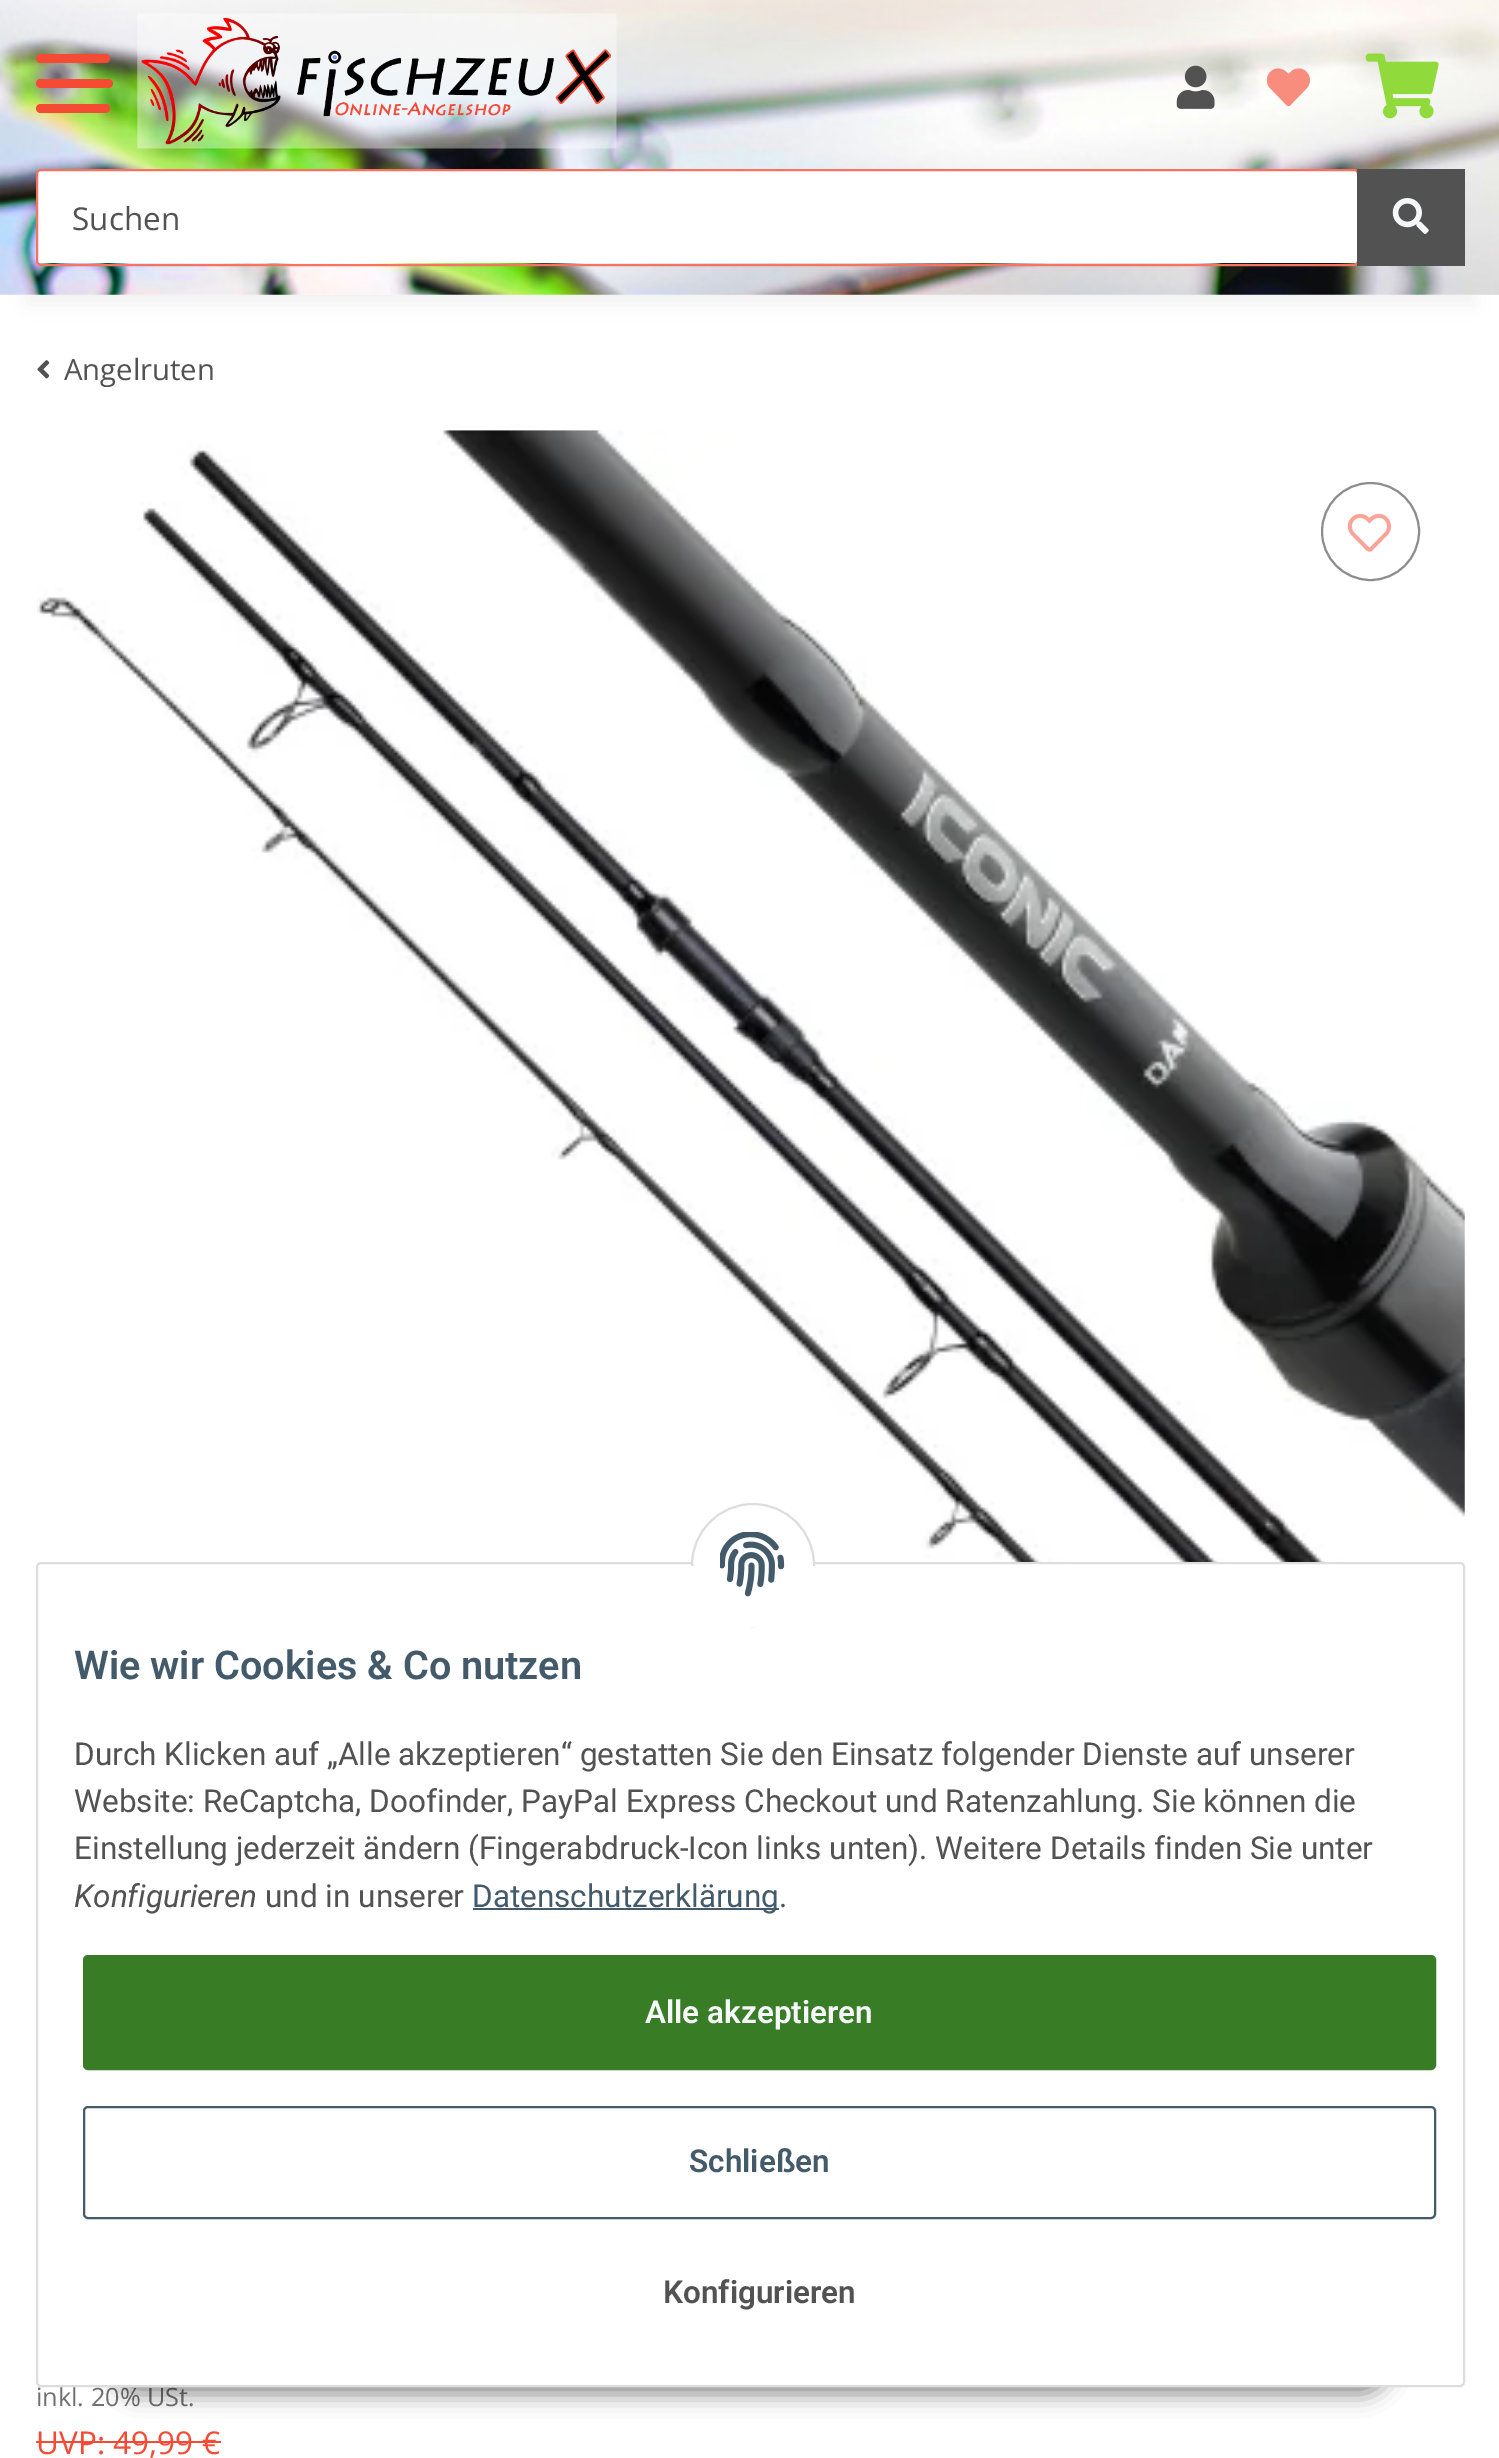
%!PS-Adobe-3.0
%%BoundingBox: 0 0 1499 2458
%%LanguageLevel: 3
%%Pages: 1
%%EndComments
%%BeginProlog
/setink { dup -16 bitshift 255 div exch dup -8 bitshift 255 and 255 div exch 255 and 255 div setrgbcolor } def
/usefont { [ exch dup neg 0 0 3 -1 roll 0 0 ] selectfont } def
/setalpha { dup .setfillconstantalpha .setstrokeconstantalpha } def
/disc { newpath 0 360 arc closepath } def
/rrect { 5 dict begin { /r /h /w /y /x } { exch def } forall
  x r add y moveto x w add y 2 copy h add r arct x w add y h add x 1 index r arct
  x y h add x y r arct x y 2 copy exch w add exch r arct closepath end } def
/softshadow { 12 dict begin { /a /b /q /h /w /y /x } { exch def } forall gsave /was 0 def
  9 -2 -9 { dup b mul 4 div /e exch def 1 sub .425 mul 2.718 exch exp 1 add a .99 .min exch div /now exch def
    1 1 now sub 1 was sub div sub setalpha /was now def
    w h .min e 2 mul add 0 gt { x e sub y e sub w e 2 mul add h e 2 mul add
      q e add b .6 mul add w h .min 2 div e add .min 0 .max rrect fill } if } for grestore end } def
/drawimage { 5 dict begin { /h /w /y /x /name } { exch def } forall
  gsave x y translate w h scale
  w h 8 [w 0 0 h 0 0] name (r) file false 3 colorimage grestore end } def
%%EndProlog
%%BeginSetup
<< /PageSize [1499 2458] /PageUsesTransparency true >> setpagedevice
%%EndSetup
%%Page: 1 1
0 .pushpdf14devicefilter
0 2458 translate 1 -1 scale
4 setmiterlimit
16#FFFFFF setink
0 0 1499 2458 rectfill
16#000000 setink
27 63 1447 241 0 10 0.06 softshadow
(img1.raw) 0 0 1499 295 drawimage
16#F54B35 setink
36 79 77 9 4.5 rrect fill
36 54 74 9 4.5 rrect fill
36 104 74 9 4.5 rrect fill
(img2.raw) 137 13 480 136 drawimage
(img3.raw) 1176 65 39 44 drawimage
(img4.raw) 1266 68 44 39 drawimage
(img5.raw) 1365 53 74 66 drawimage
16#FFFFFF setink
38 171 1319 92 2 rrect fill
16#F77361 setink
2 setlinewidth
37 170 1321 95 4 rrect stroke
/OpenSans-Regular 31.5 usefont
16#525252 setink
72 230 moveto (Suchen) show
1357 169 108 97 rectfill
(img6.raw) 1392 198 37 36 drawimage
(img7.raw) 37 360 13 19 drawimage
/OpenSans-Regular 29.25 usefont
64 380 moveto (Angelruten) show
(img8.raw) 37 430 1428 1137 drawimage
16#8D8D8D setink
1370.5 531.5 48.5 disc stroke
(img9.raw) 1347 513 44 39 drawimage
/OpenSans-Regular 25.25 usefont
16#707070 setink
36 2406 moveto (inkl. 20% USt.) show
/OpenSans-Regular 31.5 usefont
16#F54B35 setink
36 2454 moveto (UVP: 49,99 €) show
36 2441 185 2 rectfill
16#000000 setink
110 2322 1281 72 36 11 0.45 softshadow
16#FFFFFF setink
37 1563 1427 823 4 rrect gsave fill grestore
16#DDDDDD setink
stroke
16#FFFFFF setink
753 1565 61 disc gsave fill grestore
16#DDDDDD setink
stroke
16#FFFFFF setink
691 1566 124 61 rectfill
(img10.raw) 720 1532 65 65 drawimage
/Roboto-SemiBold 39.6 usefont
16#435A6B setink
74 1679 moveto (Wie wir Cookies & Co nutzen) show
/Roboto-Regular 31.5 usefont
16#525252 setink
[
    [(Durch Klicken auf „Alle akzeptieren“ gestatten Sie den Einsatz folgender Dienste auf unserer) 74 1765]
    [(Website: ReCaptcha, Doofinder, PayPal Express Checkout und Ratenzahlung. Sie können die) 74 1812]
    [(Einstellung jederzeit ändern \(Fingerabdruck-Icon links unten\). Weitere Details finden Sie unter) 74 1859]
] { aload pop moveto show } forall
/Roboto-Italic 31.5 usefont
74 1907 moveto (Konfigurieren) show
/Roboto-Regular 31.5 usefont
265 1907 moveto (und in unserer) show
16#435A6B setink
473 1908 306 2 rectfill
472 1907 moveto (Datenschutzerklärung) show
16#525252 setink
779 1907 moveto (.) show
16#397C26 setink
84 1956 1351 113 4 rrect gsave fill grestore
stroke
/Roboto-SemiBold 31.5 usefont
16#F5F7FA setink
645 2023 moveto (Alle akzeptieren) show
16#435A6B setink
84 2107 1351 111 4 rrect stroke
689 2172 moveto (Schließen) show
16#525252 setink
663 2303 moveto (Konfigurieren) show
.poppdf14devicefilter showpage
%%EOF
